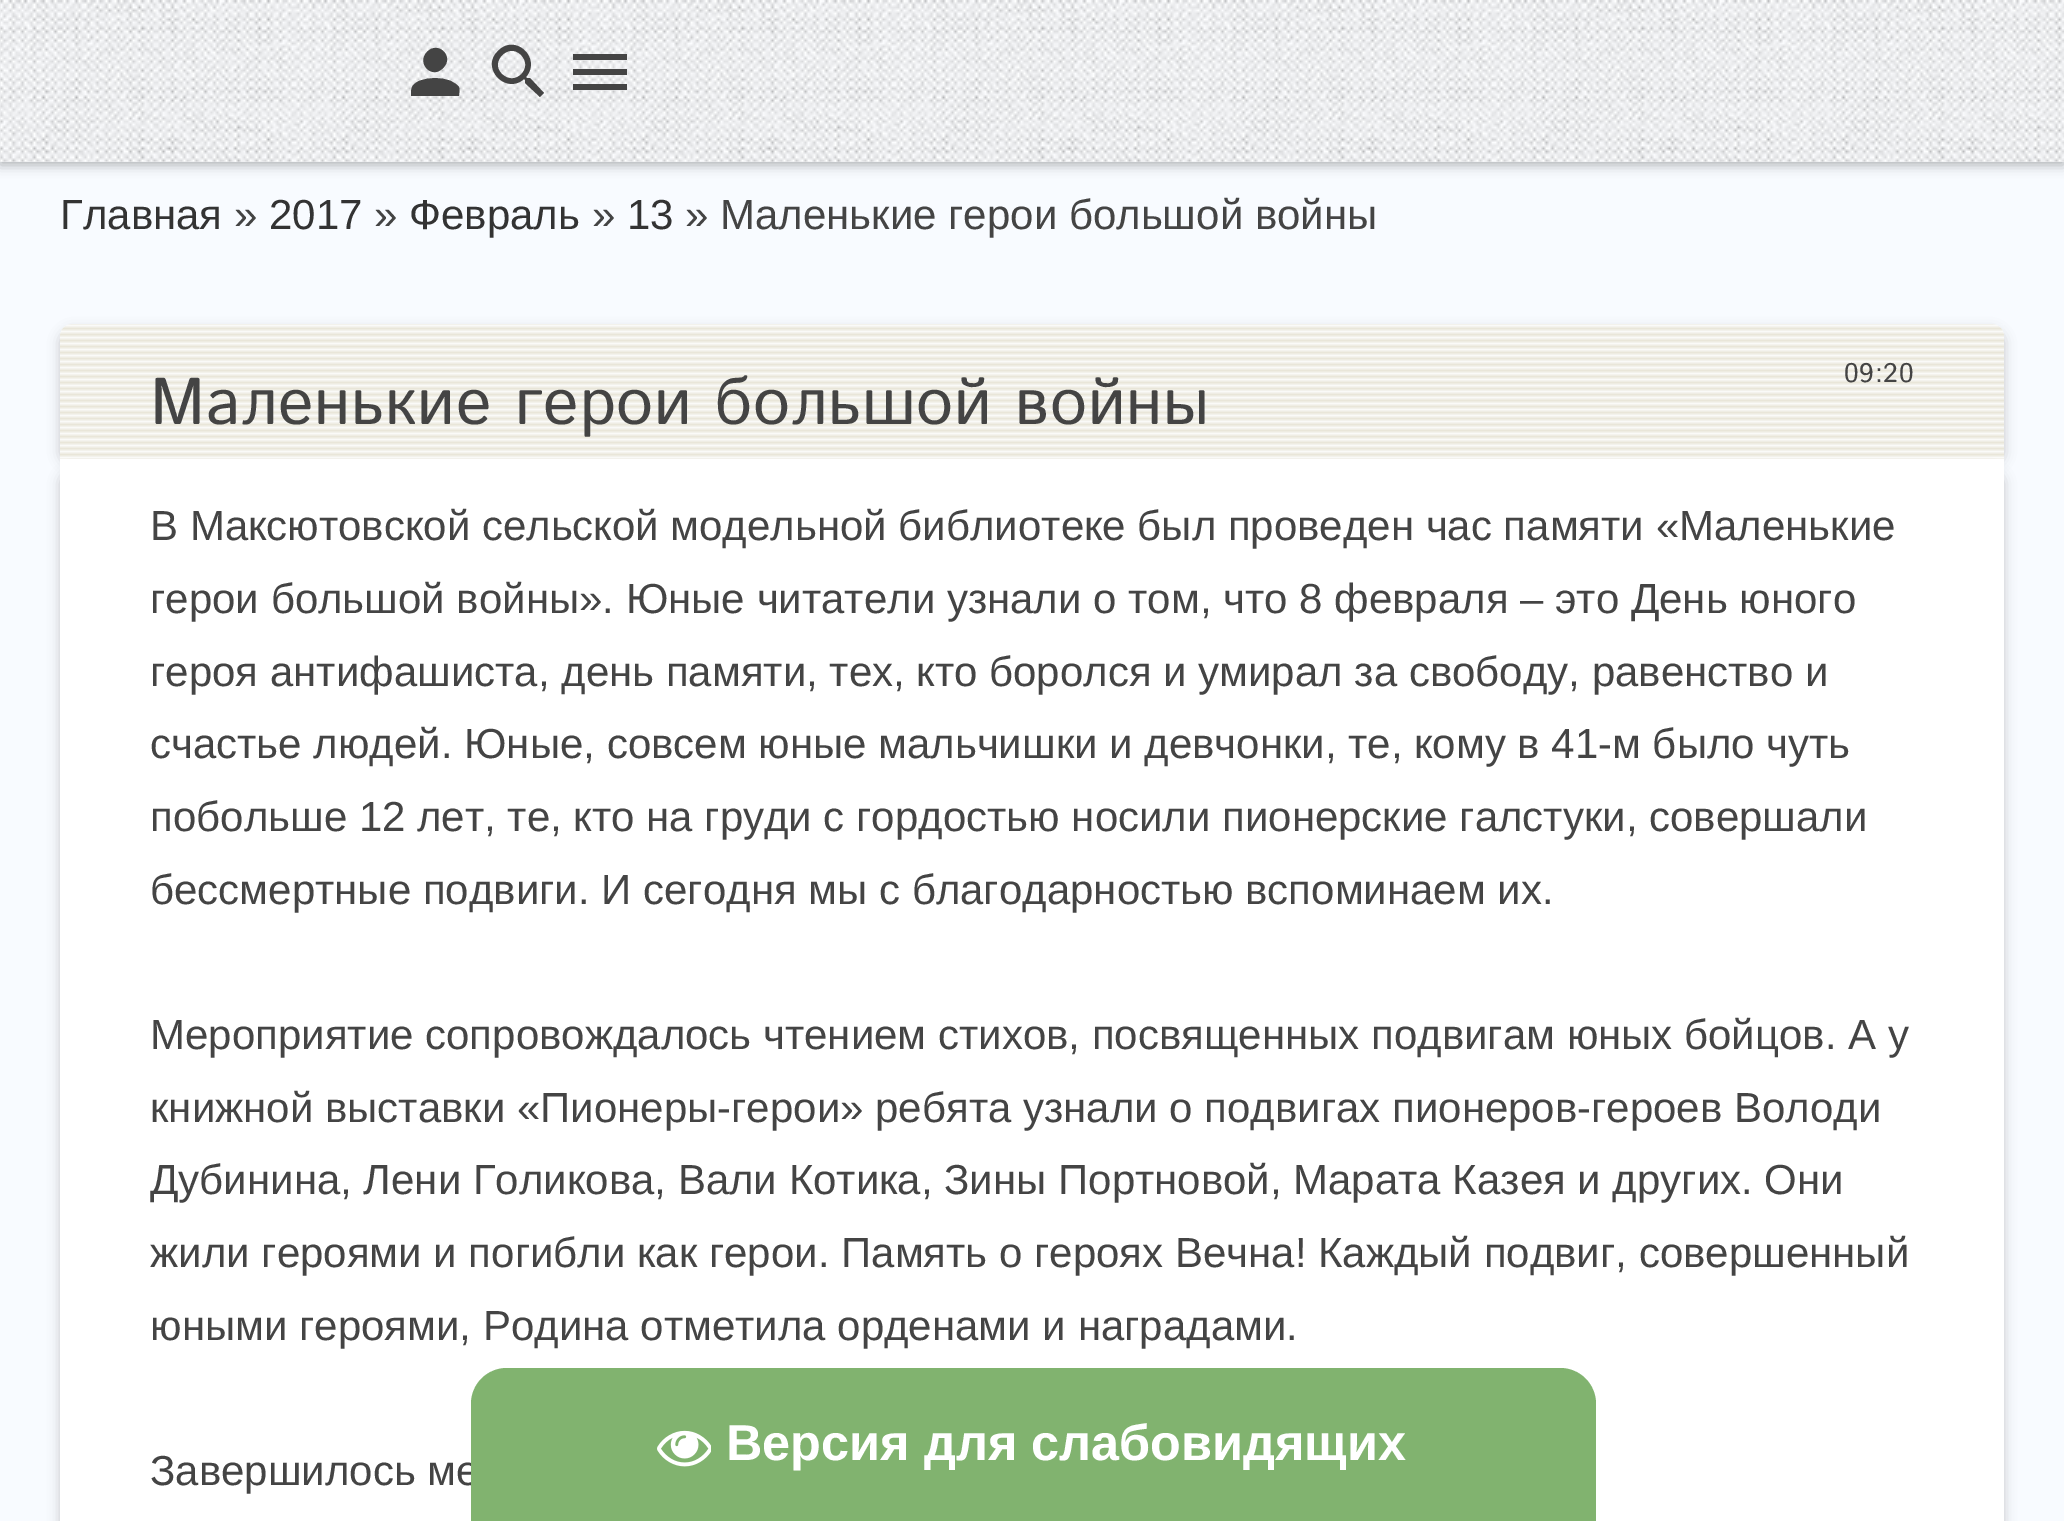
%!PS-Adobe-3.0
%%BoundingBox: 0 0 2064 1521
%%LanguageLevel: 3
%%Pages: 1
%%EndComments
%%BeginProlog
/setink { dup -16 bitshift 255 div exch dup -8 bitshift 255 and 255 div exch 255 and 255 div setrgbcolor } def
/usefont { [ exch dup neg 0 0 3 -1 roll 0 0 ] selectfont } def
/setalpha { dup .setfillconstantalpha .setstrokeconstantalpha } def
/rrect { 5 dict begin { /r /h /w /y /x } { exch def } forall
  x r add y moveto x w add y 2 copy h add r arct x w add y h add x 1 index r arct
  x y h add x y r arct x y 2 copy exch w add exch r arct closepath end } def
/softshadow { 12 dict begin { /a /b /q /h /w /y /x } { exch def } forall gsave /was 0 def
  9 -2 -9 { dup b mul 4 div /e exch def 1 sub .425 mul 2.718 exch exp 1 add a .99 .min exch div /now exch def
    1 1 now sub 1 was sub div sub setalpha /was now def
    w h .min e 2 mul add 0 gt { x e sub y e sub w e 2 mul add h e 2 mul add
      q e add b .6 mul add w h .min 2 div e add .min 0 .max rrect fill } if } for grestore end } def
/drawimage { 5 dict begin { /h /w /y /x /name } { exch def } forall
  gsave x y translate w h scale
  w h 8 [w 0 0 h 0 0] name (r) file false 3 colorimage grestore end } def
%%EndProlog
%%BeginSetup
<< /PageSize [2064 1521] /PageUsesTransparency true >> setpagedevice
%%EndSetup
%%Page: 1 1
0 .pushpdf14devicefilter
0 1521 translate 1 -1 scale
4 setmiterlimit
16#F8FBFF setink
0 0 2064 1521 rectfill
16#000000 setink
0 3 2064 162 0 6 0.3 softshadow
(img1.raw) 0 0 2064 162 drawimage
16#444444 setink
419 81 moveto 430 77 440 77 451 81 curveto 454 83 457 84 459 87 curveto 460 90 459 93 459 96 curveto 411 96 lineto 411 88 411 85 419 81 curveto closepath 443 68 moveto 432 80 416 63 427 52 curveto 438 40 455 57 443 68 curveto closepath fill
502 74 moveto 515 87 534 68 521 55 curveto 509 42 489 62 502 74 curveto closepath 530 78 moveto 544 93 lineto 540 97 lineto 525 83 lineto 525 80 lineto 524 79 lineto 506 95 480 68 498 51 curveto 515 33 542 58 526 77 curveto 527 78 lineto closepath fill
573 54 moveto 627 54 lineto 627 60 lineto 573 60 lineto closepath 573 75 moveto 573 69 lineto 627 69 lineto 627 75 lineto closepath 573 90 moveto 573 84 lineto 627 84 lineto 627 90 lineto closepath fill
/LiberationSans-Regular 42 usefont
16#333333 setink
60 229 moveto (Главная) show
16#444444 setink
234 229 moveto (») show
16#333333 setink
269 229 moveto (2017) show
16#444444 setink
374 229 moveto (») show
16#333333 setink
409 229 moveto (Февраль) show
16#444444 setink
592 229 moveto (») show
16#333333 setink
627 229 moveto (13) show
16#444444 setink
685 229 moveto (» Маленькие герои большой войны) show
16#010101 setink
60 330 1944 135 12 6 0.2 softshadow
(img2.raw) 60 324 1944 135 drawimage
/IstokWeb-Regular 27 usefont
16#444444 setink
1844 382 moveto 0.75 0 (09:20) ashow
/IstokWeb-Regular 66 usefont
150 424 moveto 0.75 0 (Маленькие герои большой войны) ashow
16#010101 setink
60 471 1944 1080 12 6 0.2 softshadow
16#FFFFFF setink
60 459 1944 1062 rectfill
/LiberationSans-Regular 42 usefont
16#444444 setink
[
    [(В Максютовской сельской модельной библиотеке был проведен час памяти «Маленькие) 150 540]
    [(герои большой войны». Юные читатели узнали о том, что 8 февраля – это День юного) 150 613]
    [(героя антифашиста, день памяти, тех, кто боролся и умирал за свободу, равенство и) 150 686]
    [(счастье людей. Юные, совсем юные мальчишки и девчонки, те, кому в 41-м было чуть) 150 758]
    [(побольше 12 лет, те, кто на груди с гордостью носили пионерские галстуки, совершали) 150 831]
    [(бессмертные подвиги. И сегодня мы с благодарностью вспоминаем их.) 150 904]
    [(Мероприятие сопровождалось чтением стихов, посвященных подвигам юных бойцов. А у) 150 1049]
    [(книжной выставки «Пионеры-герои» ребята узнали о подвигах пионеров-героев Володи) 150 1122]
    [(Дубинина, Лени Голикова, Вали Котика, Зины Портновой, Марата Казея и других. Они) 150 1194]
    [(жили героями и погибли как герои. Память о героях Вечна! Каждый подвиг, совершенный) 150 1267]
    [(юными героями, Родина отметила орденами и наградами.) 150 1340]
    [(Завершилось ме) 150 1485]
] { aload pop moveto show } forall
16#81B36F setink
507 1368 moveto 1560 1368 lineto 1580 1368 1596 1384 1596 1404 curveto 1596 1521 lineto 471 1521 lineto 471 1404 lineto 471 1384 487 1368 507 1368 curveto closepath fill
(img3.raw) 657 1430 54 37 drawimage
/LiberationSans-Bold 50.4 usefont
16#FFFFFF setink
726 1460 moveto (Версия для слабовидящих) show
.poppdf14devicefilter showpage
%%EOF
